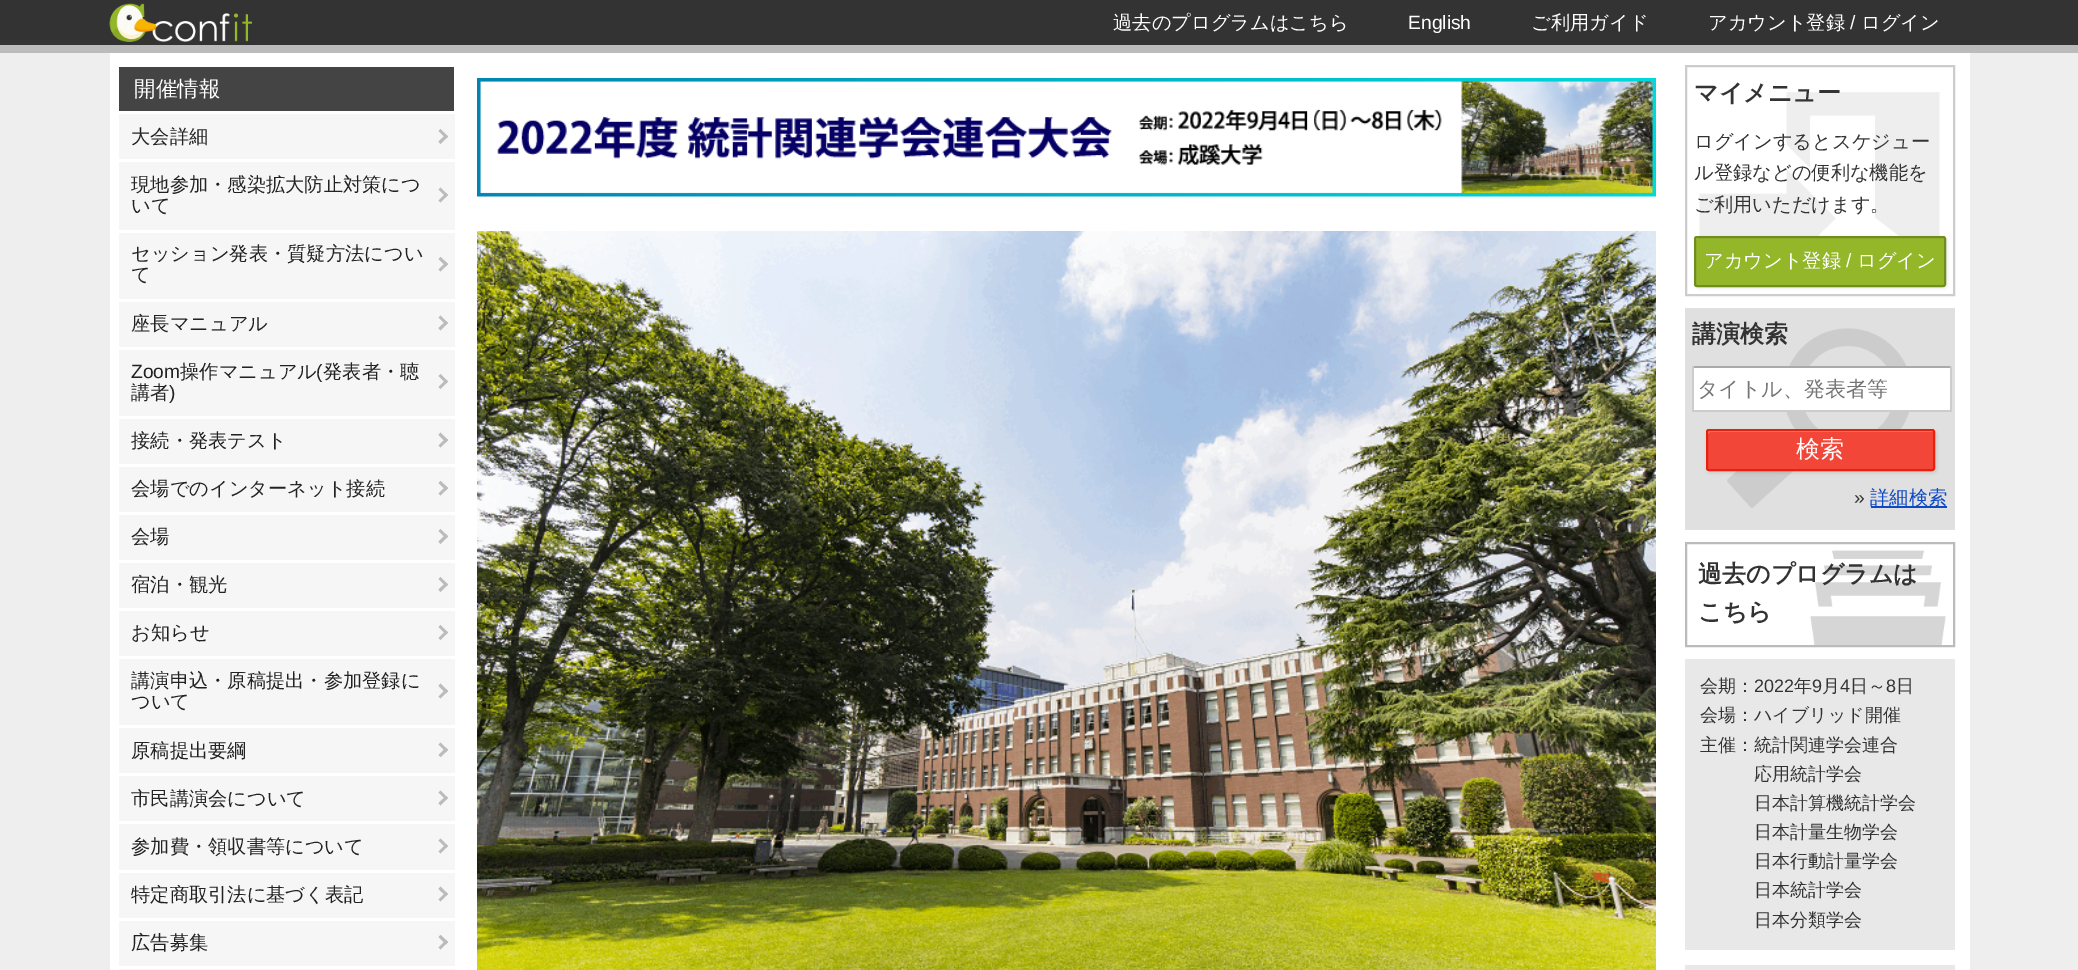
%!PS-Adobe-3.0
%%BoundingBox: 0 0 2078 970
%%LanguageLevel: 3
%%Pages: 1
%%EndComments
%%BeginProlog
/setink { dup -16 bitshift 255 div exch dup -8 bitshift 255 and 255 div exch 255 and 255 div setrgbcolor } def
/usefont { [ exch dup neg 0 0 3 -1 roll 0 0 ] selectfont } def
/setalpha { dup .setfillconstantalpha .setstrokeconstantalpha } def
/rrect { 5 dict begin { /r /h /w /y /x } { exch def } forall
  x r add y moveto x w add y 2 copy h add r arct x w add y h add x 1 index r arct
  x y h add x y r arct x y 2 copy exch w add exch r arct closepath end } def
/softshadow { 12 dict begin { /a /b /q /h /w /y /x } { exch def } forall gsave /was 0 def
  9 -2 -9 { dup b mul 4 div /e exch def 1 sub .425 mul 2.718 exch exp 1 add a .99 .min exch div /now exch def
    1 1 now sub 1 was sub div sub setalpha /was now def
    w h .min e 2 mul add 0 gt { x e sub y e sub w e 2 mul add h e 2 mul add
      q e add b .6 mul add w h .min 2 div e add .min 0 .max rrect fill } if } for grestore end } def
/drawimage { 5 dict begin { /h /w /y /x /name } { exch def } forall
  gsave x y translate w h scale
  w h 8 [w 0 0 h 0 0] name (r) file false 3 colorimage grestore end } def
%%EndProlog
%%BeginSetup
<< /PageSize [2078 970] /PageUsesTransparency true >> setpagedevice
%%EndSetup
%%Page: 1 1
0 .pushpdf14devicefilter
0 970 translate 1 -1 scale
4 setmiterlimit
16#EEEEEE setink
0 0 2078 970 rectfill
16#333333 setink
0 0 2078 45 rectfill
16#BBBBBB setink
0 45 2078 8 rectfill
(img1.raw) 109 3 143 39 drawimage
/WenQuanYiZenHei-Medium 19.25 usefont
16#FFFFFF setink
1113 29 moveto (過去のプログラムはこちら) show
/LiberationSans-Regular 19.25 usefont
1408 29 moveto (English) show
/WenQuanYiZenHei-Medium 19.25 usefont
1531 29 moveto (ご利用ガイド) show
1708 29 moveto (アカウント登録) show
/LiberationSans-Regular 19.25 usefont
1850 29 moveto (/) show
/WenQuanYiZenHei-Medium 19.25 usefont
1861 29 moveto (ログイン) show
110 53 1860 917 rectfill
16#444444 setink
119 67 335 44 rectfill
/WenQuanYiZenHei-Medium 21.5 usefont
16#FFFFFF setink
134 96 moveto (開催情報) show
16#F6F6F6 setink
119 114 336 45 rectfill
/WenQuanYiZenHei-Medium 19.25 usefont
16#222222 setink
131 143 moveto (大会詳細) show
16#BBBBBB setink
440.5 129 moveto 448 136.5 lineto 446 138.5 lineto 438.5 131 lineto closepath fill
446 134.5 moveto 448 136.5 lineto 440.5 144 lineto 438.5 141.5 lineto closepath fill
16#F6F6F6 setink
119 162 336 68 rectfill
16#222222 setink
131 191 moveto (現地参加・感染拡大防止対策につ) show
16#BBBBBB setink
440.5 187.5 moveto 448 195 lineto 446 197 lineto 438.5 189.5 lineto closepath fill
446 193 moveto 448 195 lineto 440.5 202.5 lineto 438.5 200.5 lineto closepath fill
16#222222 setink
131 212 moveto (いて) show
16#F6F6F6 setink
119 233 336 66 rectfill
16#222222 setink
131 260 moveto (セッション発表・質疑方法につい) show
16#BBBBBB setink
440.5 257 moveto 448 264 lineto 446 266.5 lineto 438.5 259 lineto closepath fill
446 262 moveto 448 264 lineto 440.5 271.5 lineto 438.5 269.5 lineto closepath fill
16#222222 setink
131 281 moveto (て) show
16#F6F6F6 setink
119 302 336 45 rectfill
16#222222 setink
131 330 moveto (座長マニュアル) show
16#BBBBBB setink
440.5 315.5 moveto 448 323 lineto 446 325 lineto 438.5 317.5 lineto closepath fill
446 321 moveto 448 323 lineto 440.5 330.5 lineto 438.5 328 lineto closepath fill
16#F6F6F6 setink
119 350 336 66 rectfill
/LiberationSans-Regular 19.25 usefont
16#222222 setink
131 378 moveto (Zoom) show
/WenQuanYiZenHei-Medium 19.25 usefont
180 378 moveto (操作マニュアル) show
/LiberationSans-Regular 19.25 usefont
316 378 moveto (\() show
/WenQuanYiZenHei-Medium 19.25 usefont
323 378 moveto (発表者・聴) show
16#BBBBBB setink
440.5 374 moveto 448 381.5 lineto 446 383.5 lineto 438.5 376 lineto closepath fill
446 379.5 moveto 448 381.5 lineto 440.5 389 lineto 438.5 387 lineto closepath fill
16#222222 setink
131 399 moveto (講者) show
/LiberationSans-Regular 19.25 usefont
169 399 moveto (\)) show
16#F6F6F6 setink
119 419 336 45 rectfill
/WenQuanYiZenHei-Medium 19.25 usefont
16#222222 setink
131 447 moveto (接続・発表テスト) show
16#BBBBBB setink
440.5 432.5 moveto 448 440 lineto 446 442.5 lineto 438.5 435 lineto closepath fill
446 438 moveto 448 440 lineto 440.5 447.5 lineto 438.5 445.5 lineto closepath fill
16#F6F6F6 setink
119 467 336 45 rectfill
16#222222 setink
131 495 moveto (会場でのインターネット接続) show
16#BBBBBB setink
440.5 481 moveto 448 488 lineto 446 490.5 lineto 438.5 483 lineto closepath fill
446 486 moveto 448 488 lineto 440.5 495.5 lineto 438.5 493.5 lineto closepath fill
16#F6F6F6 setink
119 515 336 45 rectfill
16#222222 setink
131 543 moveto (会場) show
16#BBBBBB setink
440.5 529 moveto 448 536.5 lineto 446 538.5 lineto 438.5 531 lineto closepath fill
446 534 moveto 448 536.5 lineto 440.5 544 lineto 438.5 541.5 lineto closepath fill
16#F6F6F6 setink
119 563 336 45 rectfill
16#222222 setink
131 591 moveto (宿泊・観光) show
16#BBBBBB setink
440.5 577 moveto 448 584.5 lineto 446 586.5 lineto 438.5 579 lineto closepath fill
446 582.5 moveto 448 584.5 lineto 440.5 592 lineto 438.5 589.5 lineto closepath fill
16#F6F6F6 setink
119 611 336 45 rectfill
16#222222 setink
131 639 moveto (お知らせ) show
16#BBBBBB setink
440.5 625 moveto 448 632.5 lineto 446 634.5 lineto 438.5 627 lineto closepath fill
446 630.5 moveto 448 632.5 lineto 440.5 640 lineto 438.5 638 lineto closepath fill
16#F6F6F6 setink
119 659 336 66 rectfill
16#222222 setink
131 687 moveto (講演申込・原稿提出・参加登録に) show
16#BBBBBB setink
440.5 683.5 moveto 448 691 lineto 446 693.5 lineto 438.5 686 lineto closepath fill
446 689 moveto 448 691 lineto 440.5 698.5 lineto 438.5 696.5 lineto closepath fill
16#222222 setink
131 708 moveto (ついて) show
16#F6F6F6 setink
119 728 336 45 rectfill
16#222222 setink
131 757 moveto (原稿提出要綱) show
16#BBBBBB setink
440.5 742.5 moveto 448 750 lineto 446 752 lineto 438.5 744.5 lineto closepath fill
446 747.5 moveto 448 750 lineto 440.5 757 lineto 438.5 755 lineto closepath fill
16#F6F6F6 setink
119 776 336 45 rectfill
16#222222 setink
131 805 moveto (市民講演会について) show
16#BBBBBB setink
440.5 790.5 moveto 448 798 lineto 446 800 lineto 438.5 792.5 lineto closepath fill
446 796 moveto 448 798 lineto 440.5 805.5 lineto 438.5 803 lineto closepath fill
16#F6F6F6 setink
119 824 336 46 rectfill
16#222222 setink
131 853 moveto (参加費・領収書等について) show
16#BBBBBB setink
440.5 838.5 moveto 448 846 lineto 446 848 lineto 438.5 840.5 lineto closepath fill
446 844 moveto 448 846 lineto 440.5 853.5 lineto 438.5 851.5 lineto closepath fill
16#F6F6F6 setink
119 873 336 45 rectfill
16#222222 setink
131 901 moveto (特定商取引法に基づく表記) show
16#BBBBBB setink
440.5 886.5 moveto 448 894 lineto 446 896 lineto 438.5 889 lineto closepath fill
446 892 moveto 448 894 lineto 440.5 901.5 lineto 438.5 899.5 lineto closepath fill
16#F6F6F6 setink
119 921 336 45 rectfill
16#222222 setink
131 949 moveto (広告募集) show
16#BBBBBB setink
440.5 935 moveto 448 942 lineto 446 944.5 lineto 438.5 937 lineto closepath fill
446 940 moveto 448 942 lineto 440.5 949.5 lineto 438.5 947.5 lineto closepath fill
16#F6F6F6 setink
119 969 336 1 rectfill
(img2.raw) 477 78 1179 119 drawimage
(img3.raw) 477 231 1179 739 drawimage
(img4.raw) 1699 92 241 144 drawimage
16#CCCCCC setink
2 setlinewidth
1686 66 268 229 rectstroke
/WenQuanYiZenHei-Bold 24 usefont
16#333333 setink
1694 101 moveto (マイメニュー) show
/WenQuanYiZenHei-Medium 19.25 usefont
[
    [(ログインするとスケジュー) 1694 148]
    [(ル登録などの便利な機能を) 1694 179]
    [(ご利用いただけます。) 1694 211]
] { aload pop moveto show } forall
16#000000 setink
1695 237 252 51 3 1.5 0.1 softshadow
16#93B728 setink
1694 236 252 51 3 rrect fill
16#BED47E setink
1698 238 moveto 1944 238 lineto 1944 237 1943 237 1942 237 curveto 1696 237 lineto 1696 237 1695 238 1695 238 curveto 1695 284 lineto 1695 284 1695 285 1696 285 curveto 1696 240 lineto 1696 239 1697 238 1698 238 curveto closepath fill
16#718D1F setink
1695 237 250 49 2 rrect stroke
16#FFFFFF setink
1704 267 moveto (アカウント登録) show
/LiberationSans-Regular 19.25 usefont
1846 267 moveto (/) show
/WenQuanYiZenHei-Medium 19.25 usefont
1857 267 moveto (ログイン) show
16#E0E0E0 setink
1685 308 270 222 rectfill
(img5.raw) 1727 328 183 180 drawimage
/WenQuanYiZenHei-Bold 24 usefont
16#333333 setink
1692 342 moveto (講演検索) show
[
    [1694 368 256 42 16#FFFFFF]
    [1692 366 260 2 16#AAAAAA]
    [1950 366 2 45 16#CCCCCC]
    [1692 410 260 2 16#CCCCCC]
    [1692 366 2 45 16#CCCCCC]
] { aload pop setink rectfill } forall
/WenQuanYiZenHei-Medium 21 usefont
16#757575 setink
1697 396 moveto (タイトル、発表者等) show
16#000000 setink
1707 431 230 42 3 1.5 0.1 softshadow
16#F24738 setink
1706 429 229 42 3 rrect fill
16#F79188 setink
1710 432 moveto 1934 432 lineto 1932 431 lineto 1708 431 lineto 1707 432 lineto 1707 469 lineto 1708 470 lineto 1708 434 lineto 1708 433 1709 432 1710 432 curveto closepath fill
16#E8210F setink
1707 430 227 40 2 rrect stroke
/WenQuanYiZenHei-Medium 24 usefont
16#FFFFFF setink
1796 457 moveto (検索) show
/LiberationSans-Regular 19.25 usefont
16#333333 setink
1854 504 moveto (») show
16#0C49C5 setink
1871 506 76 2 rectfill
/WenQuanYiZenHei-Medium 19.25 usefont
1870 504 moveto (詳細検索) show
(img6.raw) 1810 550 136 95 drawimage
16#BBBBBB setink
1686 543 268 103 rectstroke
/WenQuanYiZenHei-Bold 24 usefont
16#333333 setink
1698 582 moveto (過去のプログラムは) show
1698 620 moveto (こちら) show
16#E8E8E8 setink
1685 659 270 291 rectfill
/WenQuanYiZenHei-Medium 18 usefont
16#333333 setink
1700 692 moveto (会期：) show
/LiberationSans-Regular 18 usefont
1754 692 moveto (2022) show
/WenQuanYiZenHei-Medium 18 usefont
1794 692 moveto (年) show
/LiberationSans-Regular 18 usefont
1812 692 moveto (9) show
/WenQuanYiZenHei-Medium 18 usefont
1822 692 moveto (月) show
/LiberationSans-Regular 18 usefont
1840 692 moveto (4) show
/WenQuanYiZenHei-Medium 18 usefont
1850 692 moveto (日～) show
/LiberationSans-Regular 18 usefont
1886 692 moveto (8) show
/WenQuanYiZenHei-Medium 18 usefont
[
    [(日) 1896 692]
    [(会場：ハイブリッド開催) 1700 721]
    [(主催：統計関連学会連合) 1700 751]
    [(応用統計学会) 1754 780]
    [(日本計算機統計学会) 1754 809]
    [(日本計量生物学会) 1754 838]
    [(日本行動計量学会) 1754 867]
    [(日本統計学会) 1754 896]
    [(日本分類学会) 1754 926]
] { aload pop moveto show } forall
16#E8E8E8 setink
1685 965 270 5 rectfill
.poppdf14devicefilter showpage
%%EOF
